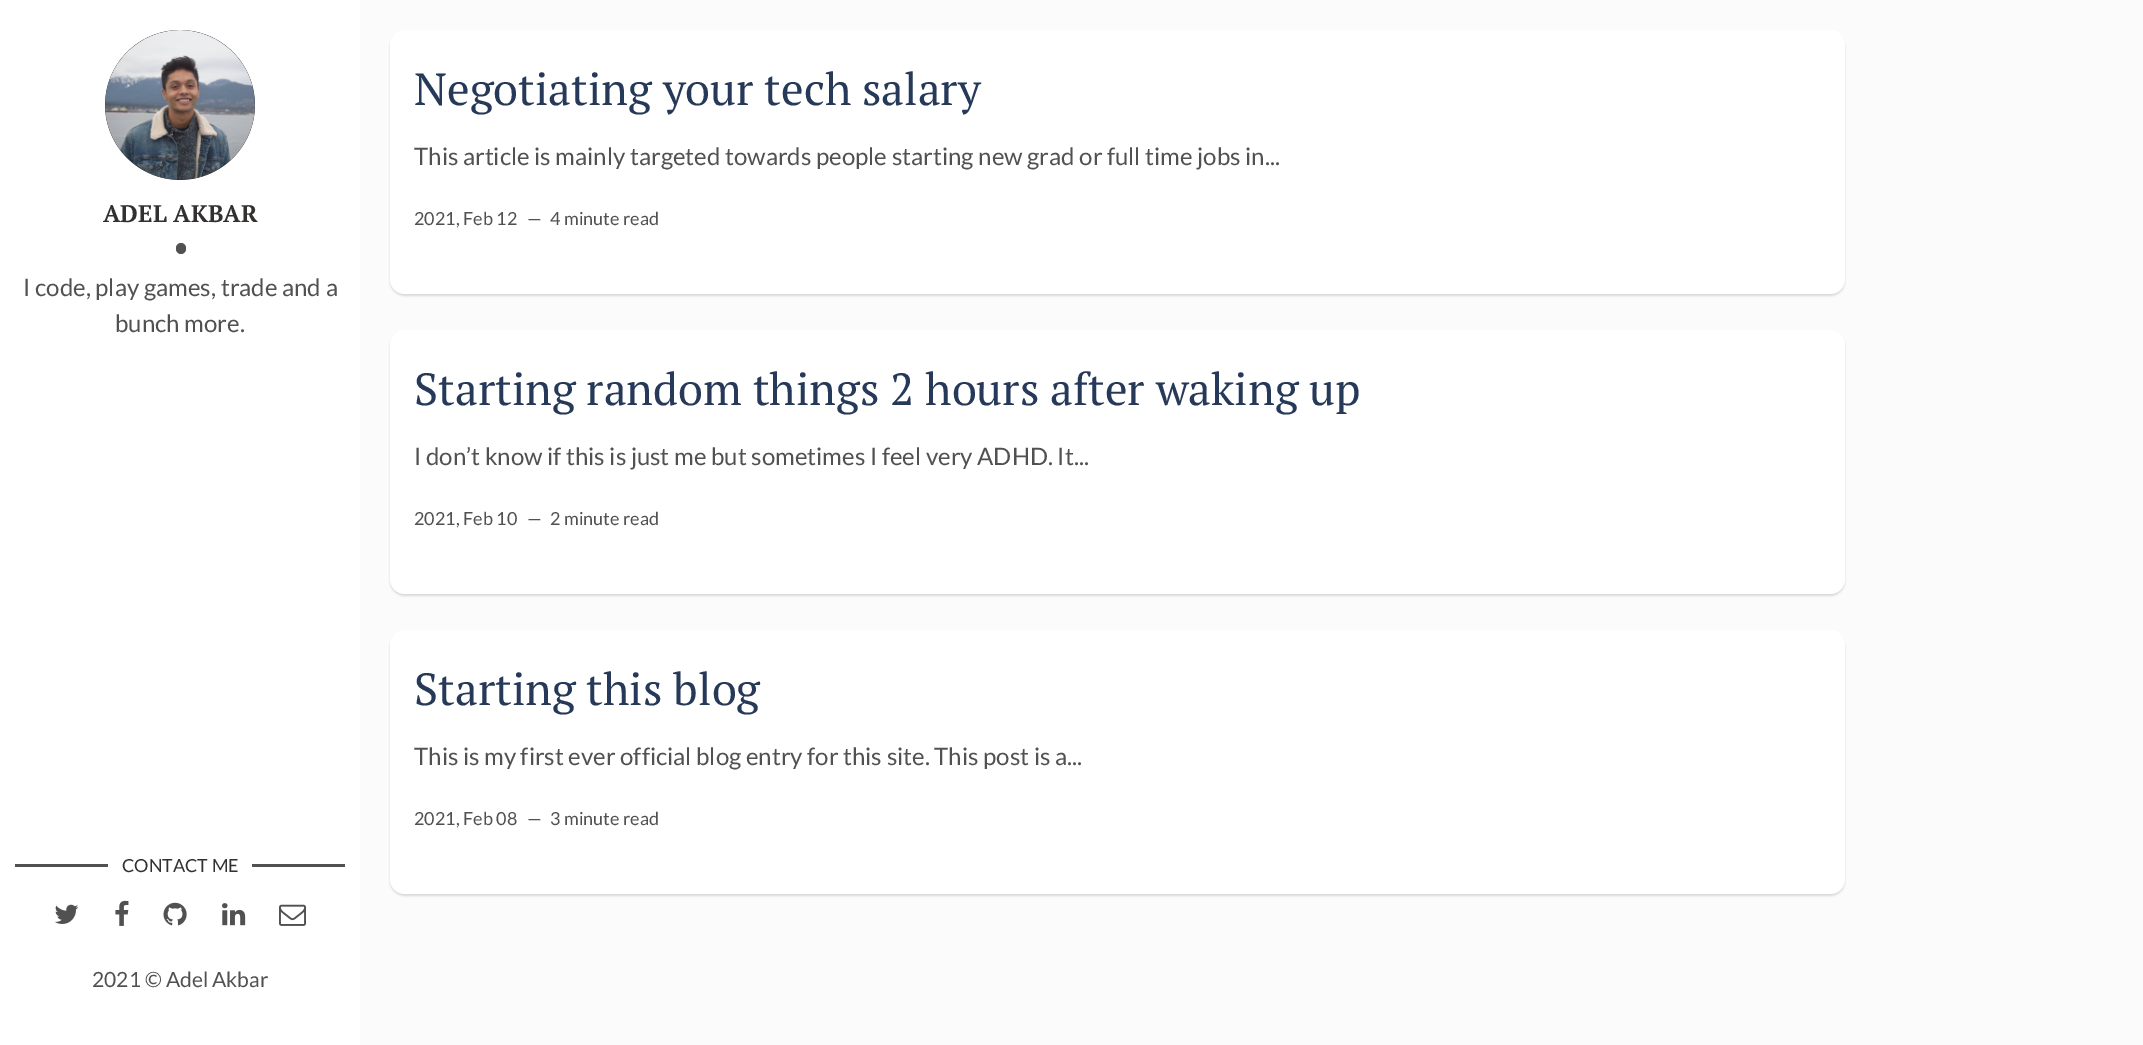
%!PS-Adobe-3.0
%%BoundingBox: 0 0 2143 1045
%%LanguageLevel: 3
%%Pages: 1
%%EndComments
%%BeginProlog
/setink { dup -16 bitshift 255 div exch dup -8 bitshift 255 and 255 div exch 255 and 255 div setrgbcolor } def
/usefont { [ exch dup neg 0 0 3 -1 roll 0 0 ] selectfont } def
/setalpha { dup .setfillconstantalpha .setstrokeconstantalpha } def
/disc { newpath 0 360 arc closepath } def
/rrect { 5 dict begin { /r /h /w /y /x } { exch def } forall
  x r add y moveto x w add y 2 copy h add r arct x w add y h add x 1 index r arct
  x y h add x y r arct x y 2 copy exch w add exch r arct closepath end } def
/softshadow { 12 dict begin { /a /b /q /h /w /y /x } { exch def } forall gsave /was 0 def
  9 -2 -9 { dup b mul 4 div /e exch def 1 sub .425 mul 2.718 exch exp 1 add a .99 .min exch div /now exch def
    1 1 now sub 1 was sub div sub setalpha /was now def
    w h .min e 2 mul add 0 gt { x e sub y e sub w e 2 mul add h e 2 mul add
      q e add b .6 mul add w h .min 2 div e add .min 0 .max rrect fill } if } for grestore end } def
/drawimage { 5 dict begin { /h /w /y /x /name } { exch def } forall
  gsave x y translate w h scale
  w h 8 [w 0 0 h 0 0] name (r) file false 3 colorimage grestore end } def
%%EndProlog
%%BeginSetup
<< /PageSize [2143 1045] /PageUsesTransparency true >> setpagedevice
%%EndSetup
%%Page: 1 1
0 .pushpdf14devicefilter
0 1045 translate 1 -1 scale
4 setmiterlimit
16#FBFBFB setink
0 0 2143 1045 rectfill
16#FFFFFF setink
0 0 360 1045 rectfill
16#333030 setink
180 105 75 disc fill
(img1.raw) 105 30 150 150 drawimage
/PTSerif-Bold 24 usefont
103 222 moveto (ADEL AKBAR) show
16#515151 setink
176 243 10 11 5 rrect fill
/Lato-Regular 24 usefont
23 296 moveto (I code, play games, trade and a) show
115 332 moveto (bunch more.) show
15 864 93 3 rectfill
/Lato-Regular 18 usefont
16#333030 setink
122 872 moveto (CONTACT ME) show
16#515151 setink
252 864 93 3 rectfill
(img2.raw) 54 904 25 20 drawimage
(img3.raw) 115 900 14 26 drawimage
(img4.raw) 163 902 24 24 drawimage
(img5.raw) 222 903 24 23 drawimage
(img6.raw) 279 904 27 22 drawimage
/Lato-Regular 21 usefont
92 987 moveto (2021 © Adel Akbar) show
16#1F232E setink
390 32 1455 264 15 1 0.15 softshadow
16#FFFFFF setink
390 30 1455 264 15 rrect fill
/PTSerif-Regular 45 usefont
16#263959 setink
414 105 moveto (Negotiating your tech salary) show
/Lato-Regular 24 usefont
16#515151 setink
414 165 moveto (This article is mainly targeted towards people starting new grad or full time jobs in...) show
/Lato-Regular 18 usefont
414 225 moveto (2021, Feb 12   —) show
550 225 moveto (4 minute read) show
16#1F232E setink
390 332 1455 264 15 1 0.15 softshadow
16#FFFFFF setink
390 330 1455 264 15 rrect fill
/PTSerif-Regular 45 usefont
16#263959 setink
414 405 moveto (Starting random things 2 hours after waking up) show
/Lato-Regular 24 usefont
16#515151 setink
414 465 moveto (I don’t know if this is just me but sometimes I feel very ADHD. It...) show
/Lato-Regular 18 usefont
414 525 moveto (2021, Feb 10   —) show
550 525 moveto (2 minute read) show
16#1F232E setink
390 632 1455 264 15 1 0.15 softshadow
16#FFFFFF setink
390 630 1455 264 15 rrect fill
/PTSerif-Regular 45 usefont
16#263959 setink
414 705 moveto (Starting this blog) show
/Lato-Regular 24 usefont
16#515151 setink
414 765 moveto (This is my first ever official blog entry for this site. This post is a...) show
/Lato-Regular 18 usefont
414 825 moveto (2021, Feb 08   —) show
550 825 moveto (3 minute read) show
.poppdf14devicefilter showpage
%%EOF
